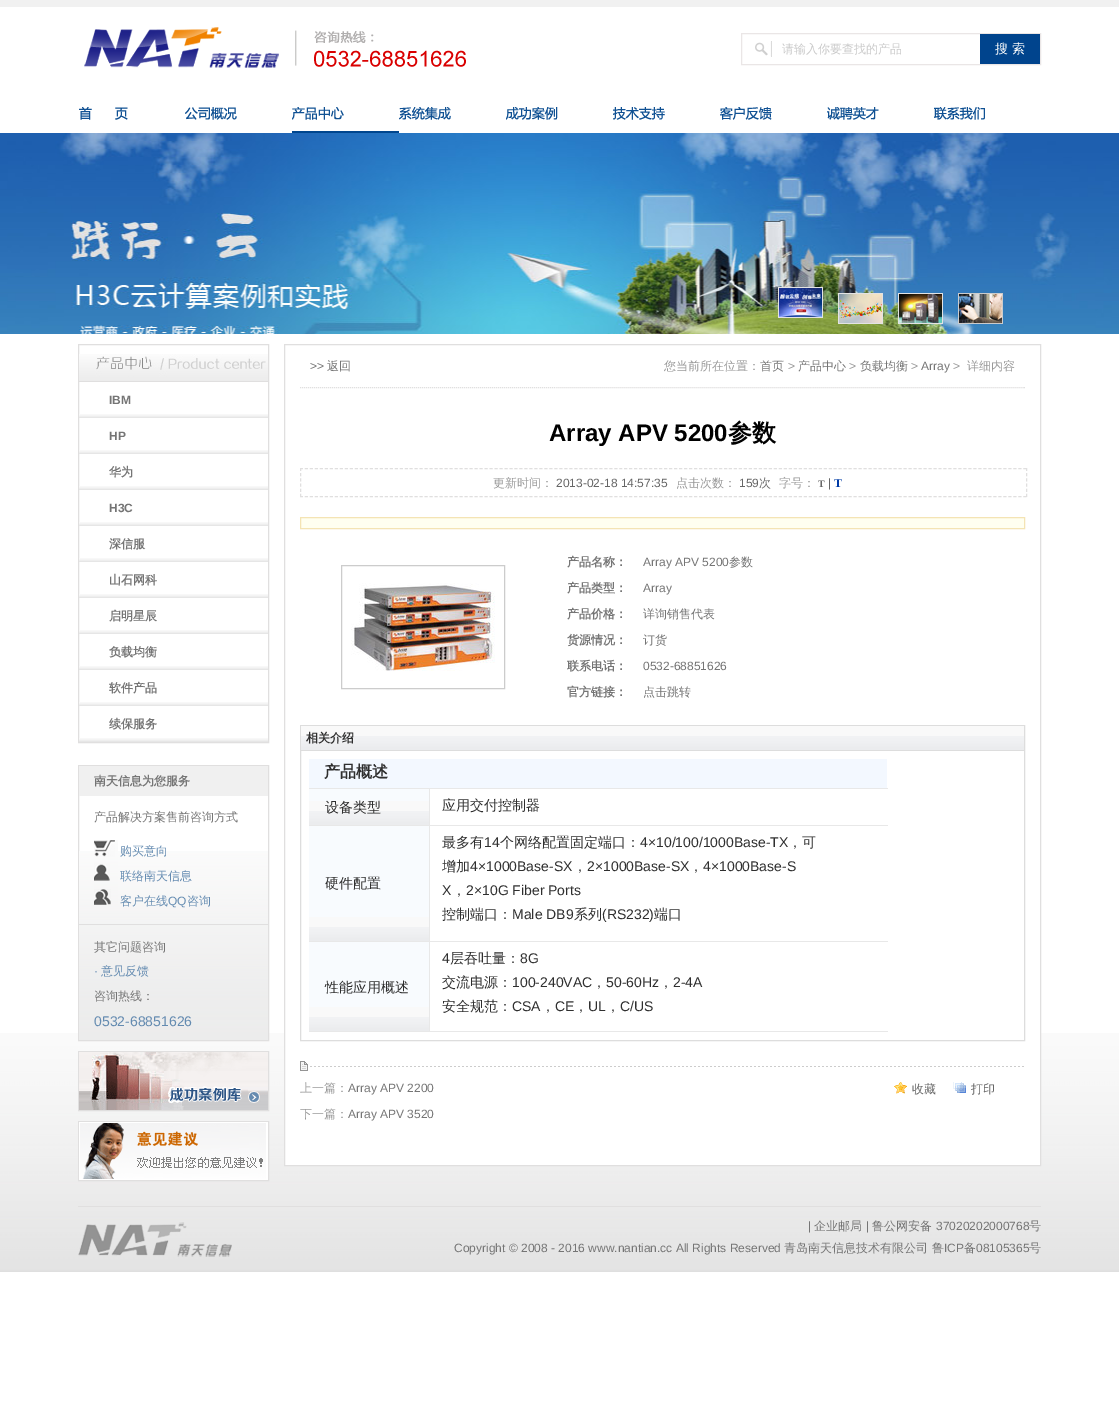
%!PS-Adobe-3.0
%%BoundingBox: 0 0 1119 1424
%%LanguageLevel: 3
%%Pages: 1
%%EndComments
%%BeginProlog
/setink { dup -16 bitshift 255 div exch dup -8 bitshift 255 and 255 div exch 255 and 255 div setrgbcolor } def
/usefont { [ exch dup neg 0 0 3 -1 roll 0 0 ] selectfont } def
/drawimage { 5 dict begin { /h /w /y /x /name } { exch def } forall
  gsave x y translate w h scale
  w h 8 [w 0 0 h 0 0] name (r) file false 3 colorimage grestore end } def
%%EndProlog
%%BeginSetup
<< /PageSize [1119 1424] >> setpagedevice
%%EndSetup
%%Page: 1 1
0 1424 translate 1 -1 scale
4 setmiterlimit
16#FFFFFF setink
0 0 1119 1424 rectfill
(img1.raw) 0 1033 1119 239 drawimage
16#F1F1F1 setink
0 0 1119 7 rectfill
(img2.raw) 84 27 382 41 drawimage
16#EAE6E6 setink
741.5 33.5 299 31 rectstroke
(img3.raw) 755 41 17 16 drawimage
/WenQuanYiZenHei-Medium 12 usefont
16#CBCBCB setink
782 53 moveto (请输入你要查找的产品) show
16#00448D setink
980 34 60 30 rectfill
/WenQuanYiZenHei-Medium 13 usefont
16#FFFFFF setink
995 53 moveto (搜) show
1012 53 moveto (索) show
(img4.raw) 79 107 49 13 drawimage
(img5.raw) 185 107 52 13 drawimage
16#00468E setink
292 131 107 2 rectfill
(img6.raw) 292 107 52 13 drawimage
(img7.raw) 399 107 52 13 drawimage
(img8.raw) 506 107 52 13 drawimage
(img9.raw) 613 107 52 13 drawimage
(img10.raw) 720 107 52 13 drawimage
(img11.raw) 827 107 52 13 drawimage
(img12.raw) 934 107 51 13 drawimage
(img13.raw) 0 133 1119 201 drawimage
(img14.raw) 778 287 45 31 drawimage
(img15.raw) 838 293 45 31 drawimage
(img16.raw) 898 293 45 31 drawimage
(img17.raw) 958 293 45 31 drawimage
16#E0DFDF setink
78.5 344.5 190 398 rectstroke
79 381 189 1 rectfill
(img18.raw) 79 354 189 27 drawimage
(img19.raw) 79 414 189 4 drawimage
/LiberationSans-Bold 12 usefont
16#757575 setink
109 404 moveto (IBM) show
(img19.raw) 79 450 189 4 drawimage
109 440 moveto (HP) show
(img19.raw) 79 486 189 4 drawimage
/WenQuanYiZenHei-Bold 12 usefont
109 476 moveto (华为) show
(img19.raw) 79 522 189 4 drawimage
/LiberationSans-Bold 12 usefont
109 512 moveto (H3C) show
(img19.raw) 79 558 189 4 drawimage
/WenQuanYiZenHei-Bold 12 usefont
109 548 moveto (深信服) show
(img19.raw) 79 594 189 4 drawimage
109 584 moveto (山石网科) show
(img19.raw) 79 630 189 4 drawimage
109 620 moveto (启明星辰) show
(img19.raw) 79 666 189 4 drawimage
109 656 moveto (负载均衡) show
(img19.raw) 79 702 189 4 drawimage
109 692 moveto (软件产品) show
(img19.raw) 79 738 189 4 drawimage
109 728 moveto (续保服务) show
16#E0DFDF setink
78.5 765.5 190 275 rectstroke
16#F0F0F0 setink
79 766 189 30 rectfill
16#757575 setink
94 785 moveto (南天信息为您服务) show
(img20.raw) 79 851 189 189 drawimage
/WenQuanYiZenHei-Medium 12 usefont
94 821 moveto (产品解决方案售前咨询方式) show
(img21.raw) 94 840 24 65 drawimage
16#648BB1 setink
[
    [(购买意向) 120 855]
    [(联络南天信息) 120 880]
    [(客户在线) 120 905]
] { aload pop moveto show } forall
/LiberationSans-Regular 12 usefont
168 905 moveto (QQ) show
/WenQuanYiZenHei-Medium 12 usefont
187 905 moveto (咨询) show
16#757575 setink
94 951 moveto (其它问题咨询) show
/LiberationSans-Regular 12 usefont
16#648BB1 setink
94 975 moveto (·) show
/WenQuanYiZenHei-Medium 12 usefont
101 975 moveto (意见反馈) show
16#757575 setink
94 1000 moveto (咨询热线：) show
/LiberationSans-Regular 14 usefont
16#648BB1 setink
94 1026 moveto (0532-68851626) show
16#E0DFDF setink
78.5 1051.5 190 59 rectstroke
(img22.raw) 79 1052 189 58 drawimage
78.5 1121.5 190 59 rectstroke
(img23.raw) 79 1122 189 58 drawimage
16#FFFFFF setink
285 1033 755 132 rectfill
16#E0DFDF setink
284.5 344.5 756 821 rectstroke
[1 1] 0 setdash
300 387.5 moveto 1025 387.5 lineto stroke
/LiberationSans-Regular 12 usefont
16#757575 setink
310 370 moveto (>>) show
/WenQuanYiZenHei-Medium 12 usefont
327 370 moveto (返回) show
16#999999 setink
664 370 moveto (您当前所在位置：) show
16#757575 setink
760 370 moveto (首页) show
/LiberationSans-Regular 12 usefont
16#999999 setink
788 370 moveto (>) show
/WenQuanYiZenHei-Medium 12 usefont
16#757575 setink
798 370 moveto (产品中心) show
/LiberationSans-Regular 12 usefont
16#999999 setink
849 370 moveto (>) show
/WenQuanYiZenHei-Medium 12 usefont
16#757575 setink
860 370 moveto (负载均衡) show
/LiberationSans-Regular 12 usefont
16#999999 setink
911 370 moveto (>) show
16#757575 setink
921 370 moveto (Array) show
16#999999 setink
953 370 moveto (>) show
/WenQuanYiZenHei-Medium 12 usefont
967 370 moveto (详细内容) show
/LiberationSans-Bold 24 usefont
16#000000 setink
549 441 moveto (Array APV 5200) show
/WenQuanYiZenHei-Bold 24 usefont
728 441 moveto (参数) show
16#E0DFDF setink
[3 1.99] 0 setdash
300 468.5 moveto 1027 468.5 lineto stroke
[3 2.2] 0 setdash
1026.5 468 moveto 1026.5 497 lineto stroke
[3 1.99] 0 setdash
300 496.5 moveto 1027 496.5 lineto stroke
[3 2.2] 0 setdash
300.5 468 moveto 300.5 497 lineto stroke
/WenQuanYiZenHei-Medium 12 usefont
16#999999 setink
493 487 moveto (更新时间：) show
/LiberationSans-Regular 12 usefont
16#666666 setink
556 487 moveto (2013-02-18 14:57:35) show
/WenQuanYiZenHei-Medium 12 usefont
16#999999 setink
676 487 moveto (点击次数：) show
/LiberationSans-Regular 12 usefont
16#666666 setink
739 487 moveto (159) show
/WenQuanYiZenHei-Medium 12 usefont
759 487 moveto (次) show
16#999999 setink
779 487 moveto (字号：) show
/LiberationSerif-Bold 10 usefont
16#666666 setink
818 487 moveto (T) show
/LiberationSans-Regular 12 usefont
828 487 moveto (|) show
/LiberationSerif-Bold 12 usefont
16#003BA6 setink
834 487 moveto (T) show
16#FFFFF0 setink
300.5 517.5 moveto 1024.5 517.5 lineto 1024.5 528.5 lineto 300.5 528.5 lineto closepath gsave fill grestore
16#F4E4B4 setink
[] 0 setdash
stroke
16#CCCCCC setink
341.5 565.5 163 123 rectstroke
(img24.raw) 351 583 144 88 drawimage
/WenQuanYiZenHei-Bold 12 usefont
16#757575 setink
567 566 moveto (产品名称：) show
/LiberationSans-Regular 12 usefont
643 566 moveto (Array APV 5200) show
/WenQuanYiZenHei-Medium 12 usefont
729 566 moveto (参数) show
/WenQuanYiZenHei-Bold 12 usefont
567 592 moveto (产品类型：) show
/LiberationSans-Regular 12 usefont
643 592 moveto (Array) show
/WenQuanYiZenHei-Bold 12 usefont
567 618 moveto (产品价格：) show
/WenQuanYiZenHei-Medium 12 usefont
643 618 moveto (详询销售代表) show
/WenQuanYiZenHei-Bold 12 usefont
567 644 moveto (货源情况：) show
/WenQuanYiZenHei-Medium 12 usefont
643 644 moveto (订货) show
/WenQuanYiZenHei-Bold 12 usefont
567 670 moveto (联系电话：) show
/LiberationSans-Regular 12 usefont
643 670 moveto (0532-68851626) show
/WenQuanYiZenHei-Bold 12 usefont
567 696 moveto (官方链接：) show
/WenQuanYiZenHei-Medium 12 usefont
643 696 moveto (点击跳转) show
16#DDDDDD setink
300.5 725.5 724 315 rectstroke
(img25.raw) 301 726 723 24 drawimage
301 750 723 1 rectfill
/WenQuanYiZenHei-Bold 12 usefont
16#2F2F2F setink
306 742 moveto (相关介绍) show
[
    [309 759 578 29 16#F3F8FF]
    [429 1031 459 1 16#E8E8E8]
    [429 941 1 91 16#E8E8E8]
    [429 941 459 1 16#E8E8E8]
    [429 825 1 117 16#E8E8E8]
    [429 825 459 1 16#E8E8E8]
    [429 788 1 38 16#E8E8E8]
    [309 788 579 1 16#E8E8E8]
] { aload pop setink rectfill } forall
/WenQuanYiZenHei-Bold 16 usefont
16#2F2F2F setink
324 777 moveto (产品概述) show
16#F8FBFE setink
309 789 120 12 rectfill
(img26.raw) 309 801 120 24 drawimage
16#E8E8E8 setink
309 825 121 1 rectfill
/WenQuanYiZenHei-Medium 14 usefont
16#2F2F2F setink
325 812 moveto (设备类型) show
442 810 moveto (应用交付控制器) show
16#F8FBFE setink
309 826 120 91 rectfill
(img26.raw) 309 917 120 24 drawimage
16#E8E8E8 setink
309 941 121 1 rectfill
16#2F2F2F setink
325 888 moveto (硬件配置) show
442 847 moveto (最多有) show
/LiberationSans-Regular 14 usefont
484 847 moveto (14) show
/WenQuanYiZenHei-Medium 14 usefont
500 847 moveto (个网络配置固定端口：) show
/LiberationSans-Regular 14 usefont
640 847 moveto (4×10/100/1000Base-TX) show
/WenQuanYiZenHei-Medium 14 usefont
788 847 moveto (，可) show
442 871 moveto (增加) show
/LiberationSans-Regular 14 usefont
470 871 moveto (4×1000Base-SX) show
/WenQuanYiZenHei-Medium 14 usefont
573 871 moveto (，) show
/LiberationSans-Regular 14 usefont
587 871 moveto (2×1000Base-SX) show
/WenQuanYiZenHei-Medium 14 usefont
689 871 moveto (，) show
/LiberationSans-Regular 14 usefont
703 871 moveto (4×1000Base-S) show
442 895 moveto (X) show
/WenQuanYiZenHei-Medium 14 usefont
452 895 moveto (，) show
/LiberationSans-Regular 14 usefont
466 895 moveto (2×10G Fiber Ports) show
/WenQuanYiZenHei-Medium 14 usefont
442 919 moveto (控制端口：) show
/LiberationSans-Regular 14 usefont
512 919 moveto (Male DB9) show
/WenQuanYiZenHei-Medium 14 usefont
574 919 moveto (系列) show
/LiberationSans-Regular 14 usefont
602 919 moveto (\(RS232\)) show
/WenQuanYiZenHei-Medium 14 usefont
654 919 moveto (端口) show
16#F8FBFE setink
309 942 120 65 rectfill
(img26.raw) 309 1007 120 24 drawimage
16#E8E8E8 setink
309 1031 121 1 rectfill
16#2F2F2F setink
325 992 moveto (性能应用概述) show
/LiberationSans-Regular 14 usefont
442 963 moveto (4) show
/WenQuanYiZenHei-Medium 14 usefont
450 963 moveto (层吞吐量：) show
/LiberationSans-Regular 14 usefont
520 963 moveto (8G) show
/WenQuanYiZenHei-Medium 14 usefont
442 987 moveto (交流电源：) show
/LiberationSans-Regular 14 usefont
512 987 moveto (100-240VAC) show
/WenQuanYiZenHei-Medium 14 usefont
592 987 moveto (，) show
/LiberationSans-Regular 14 usefont
606 987 moveto (50-60Hz) show
/WenQuanYiZenHei-Medium 14 usefont
659 987 moveto (，) show
/LiberationSans-Regular 14 usefont
673 987 moveto (2-4A) show
/WenQuanYiZenHei-Medium 14 usefont
442 1011 moveto (安全规范：) show
/LiberationSans-Regular 14 usefont
512 1011 moveto (CSA) show
/WenQuanYiZenHei-Medium 14 usefont
541 1011 moveto (，) show
/LiberationSans-Regular 14 usefont
555 1011 moveto (CE) show
/WenQuanYiZenHei-Medium 14 usefont
574 1011 moveto (，) show
/LiberationSans-Regular 14 usefont
588 1011 moveto (UL) show
/WenQuanYiZenHei-Medium 14 usefont
606 1011 moveto (，) show
/LiberationSans-Regular 14 usefont
620 1011 moveto (C/US) show
(img27.raw) 310 1066 714 1 drawimage
(img28.raw) 300 1061 8 10 drawimage
/WenQuanYiZenHei-Medium 12 usefont
16#999999 setink
300 1092 moveto (上一篇：) show
/LiberationSans-Regular 12 usefont
16#757575 setink
348 1092 moveto (Array APV 2200) show
/WenQuanYiZenHei-Medium 12 usefont
16#999999 setink
300 1118 moveto (下一篇：) show
/LiberationSans-Regular 12 usefont
16#757575 setink
348 1118 moveto (Array APV 3520) show
(img29.raw) 894 1082 13 12 drawimage
/WenQuanYiZenHei-Medium 12 usefont
16#666666 setink
912 1093 moveto (收藏) show
(img30.raw) 953 1082 13 11 drawimage
971 1093 moveto (打印) show
16#E0DFDF setink
78 1206 963 1 rectfill
(img31.raw) 78 1222 154 35 drawimage
/LiberationSans-Regular 12 usefont
16#757575 setink
808 1230 moveto (|) show
/WenQuanYiZenHei-Medium 12 usefont
814 1230 moveto (企业邮局) show
/LiberationSans-Regular 12 usefont
866 1230 moveto (|) show
/WenQuanYiZenHei-Medium 12 usefont
872 1230 moveto (鲁公网安备) show
/LiberationSans-Regular 12 usefont
936 1230 moveto (37020202000768) show
/WenQuanYiZenHei-Medium 12 usefont
1029 1230 moveto (号) show
/LiberationSans-Regular 12 usefont
454 1252 moveto (Copyright © 2008 - 2016 www.nantian.cc All Rights Reserved) show
/WenQuanYiZenHei-Medium 12 usefont
784 1252 moveto (青岛南天信息技术有限公司 鲁) show
/LiberationSans-Regular 12 usefont
944 1252 moveto (ICP) show
/WenQuanYiZenHei-Medium 12 usefont
964 1252 moveto (备) show
/LiberationSans-Regular 12 usefont
976 1252 moveto (08105365) show
/WenQuanYiZenHei-Medium 12 usefont
1029 1252 moveto (号) show
showpage
%%EOF
